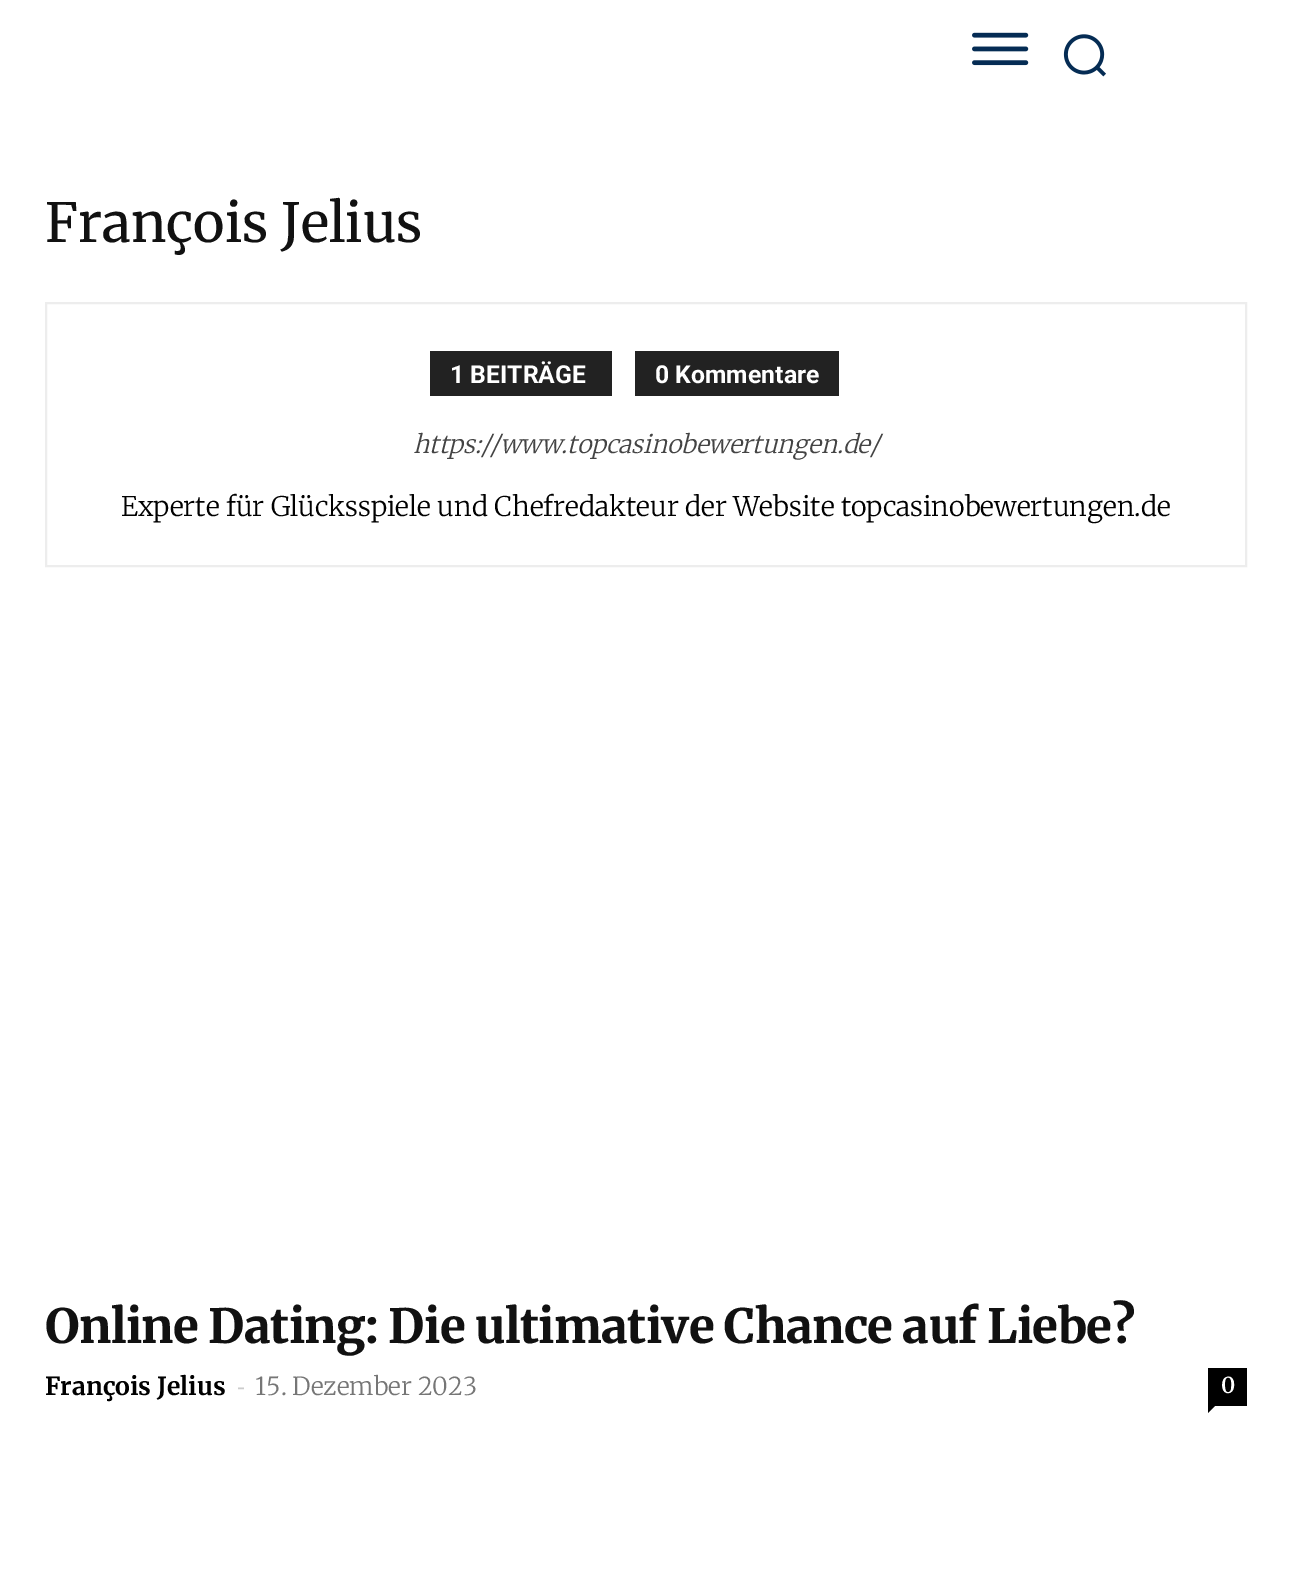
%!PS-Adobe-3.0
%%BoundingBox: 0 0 1290 1570
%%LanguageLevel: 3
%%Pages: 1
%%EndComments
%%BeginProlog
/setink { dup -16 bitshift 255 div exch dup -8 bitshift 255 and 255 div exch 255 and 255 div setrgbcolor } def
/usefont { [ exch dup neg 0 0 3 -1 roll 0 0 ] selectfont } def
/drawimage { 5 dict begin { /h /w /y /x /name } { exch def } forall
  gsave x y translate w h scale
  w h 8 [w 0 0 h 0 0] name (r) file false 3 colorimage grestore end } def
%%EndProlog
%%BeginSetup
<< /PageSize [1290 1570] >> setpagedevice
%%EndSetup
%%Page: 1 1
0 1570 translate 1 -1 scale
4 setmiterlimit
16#FFFFFF setink
0 0 1290 1570 rectfill
(img1.raw) 972 32 57 34 drawimage
(img2.raw) 1063 34 43 43 drawimage
/Merriweather-Regular 54 usefont
16#111111 setink
45 242 moveto (François Jelius) show
16#EDEDED setink
2 setlinewidth
46 303 1200 263 rectstroke
16#222222 setink
430 351 182 45 rectfill
/Roboto-Bold 24.75 usefont
16#FFFFFF setink
450 383 moveto (1 BEITRÄGE) show
16#222222 setink
635 351 204 45 rectfill
16#FFFFFF setink
655 383 moveto (0 Kommentare) show
/Merriweather-LightItalic 24.75 usefont
16#444444 setink
413 453 moveto (https://www.topcasinobewertungen.de/) show
/Merriweather-Light 27 usefont
16#000000 setink
121 516 moveto (Experte für Glücksspiele und Chefredakteur der Website topcasinobewertungen.de) show
/Merriweather-ExtraBold 47.25 usefont
16#111111 setink
45 1343 moveto -0.5 0 32 -0.65 0 (Online Dating: Die ultimative Chance auf Liebe?) awidthshow
/Merriweather-Bold 24.75 usefont
16#000000 setink
45 1395 moveto (François Jelius) show
/OpenSans-Regular 24.75 usefont
16#CCCCCC setink
237 1395 moveto (-) show
/Merriweather-Light 24.75 usefont
16#767676 setink
255 1395 moveto (15. Dezember 2023) show
16#000000 setink
1208 1368 39 38 rectfill
/Merriweather-SemiBold 22 usefont
16#FFFFFF setink
1221 1393 moveto (0) show
16#000000 setink
1208 1406 moveto 1215 1406 lineto 1208 1413 lineto closepath fill
showpage
%%EOF
